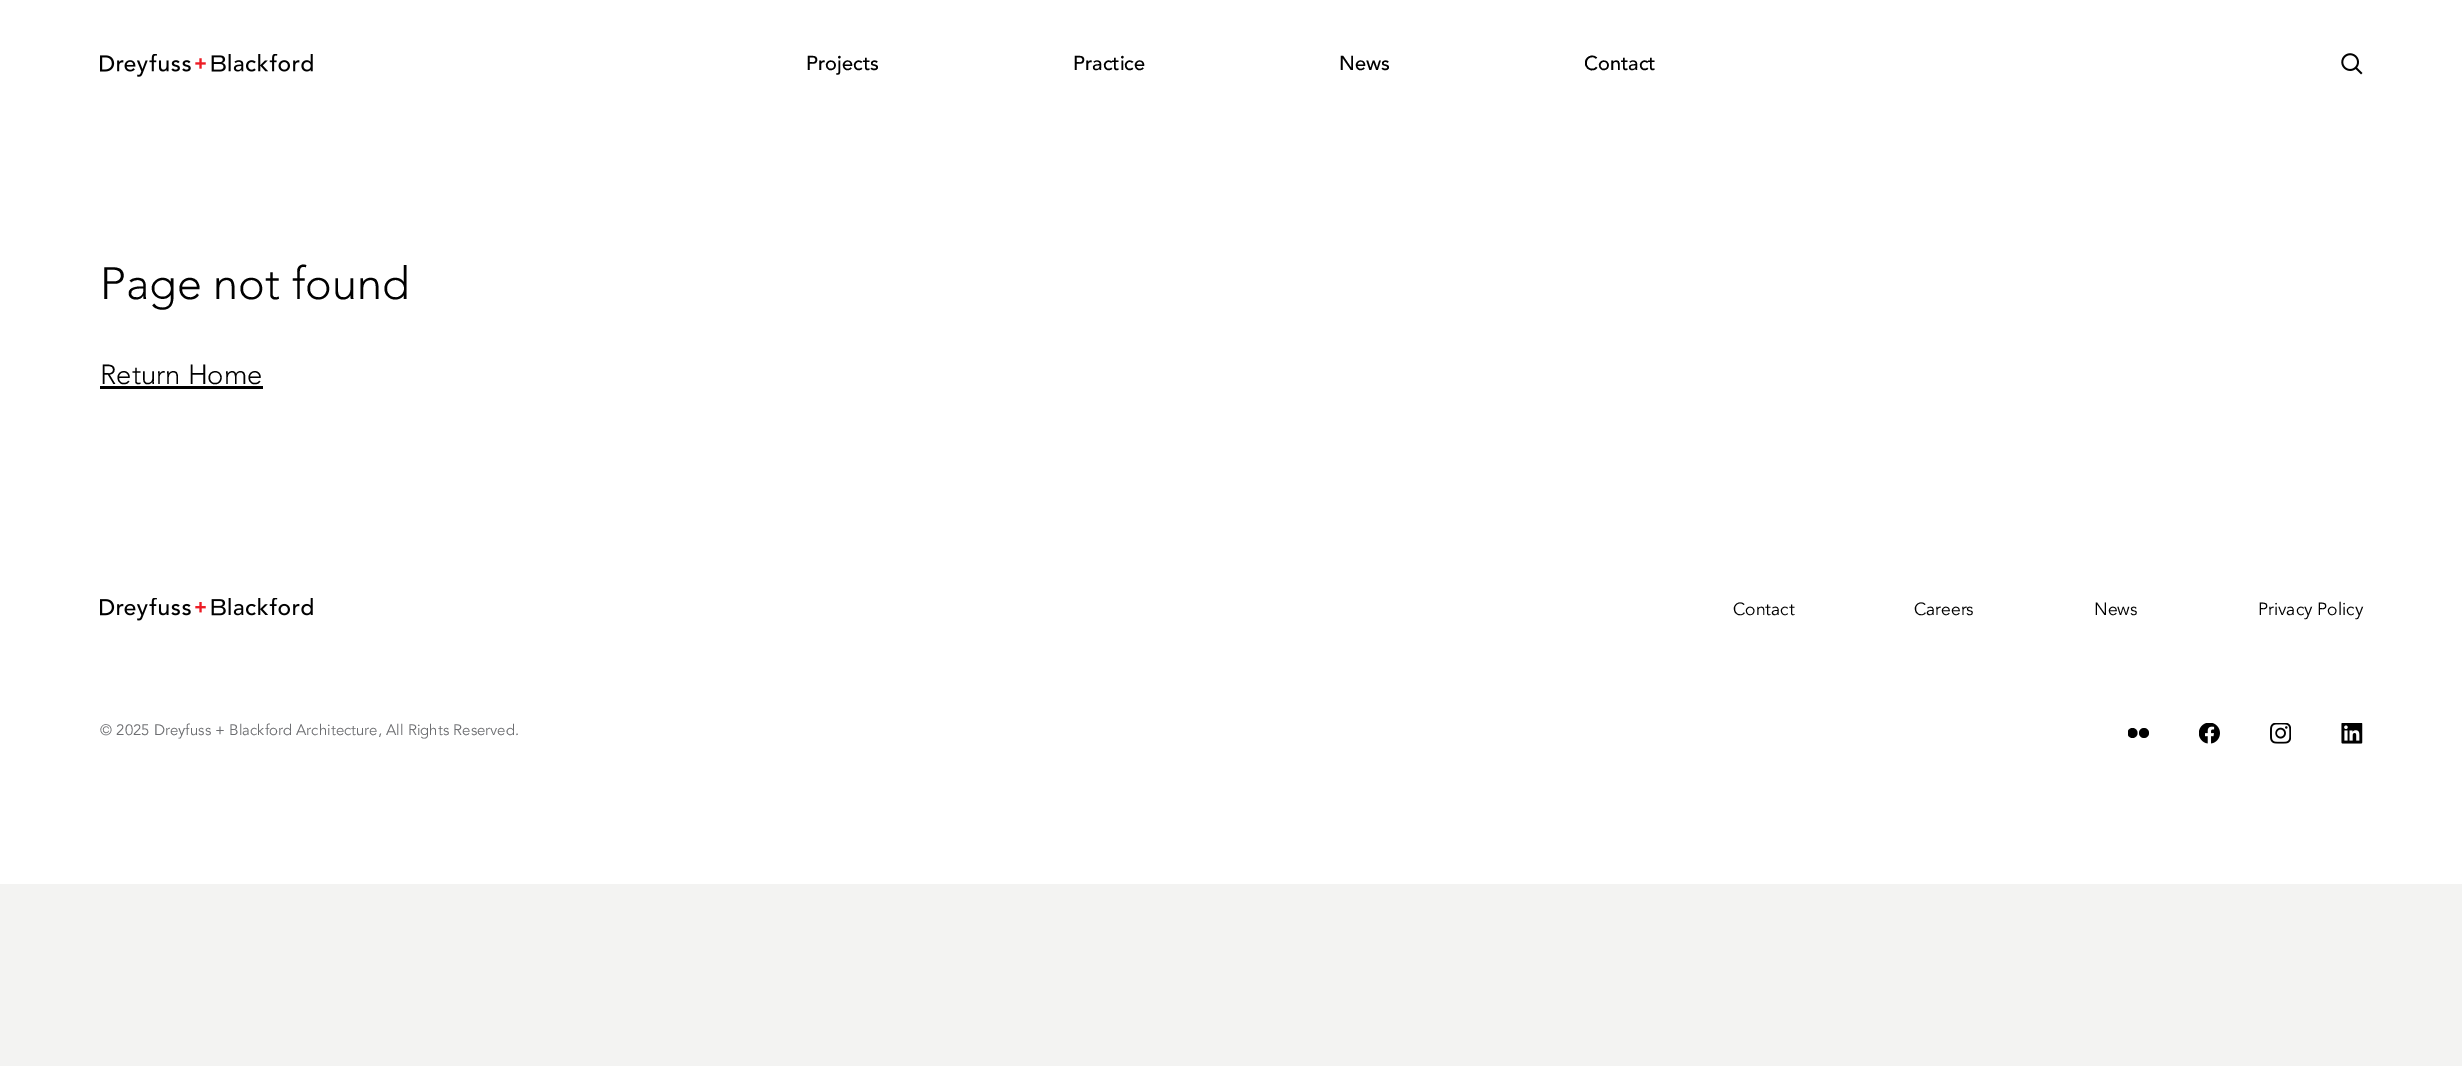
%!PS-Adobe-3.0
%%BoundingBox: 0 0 2462 1066
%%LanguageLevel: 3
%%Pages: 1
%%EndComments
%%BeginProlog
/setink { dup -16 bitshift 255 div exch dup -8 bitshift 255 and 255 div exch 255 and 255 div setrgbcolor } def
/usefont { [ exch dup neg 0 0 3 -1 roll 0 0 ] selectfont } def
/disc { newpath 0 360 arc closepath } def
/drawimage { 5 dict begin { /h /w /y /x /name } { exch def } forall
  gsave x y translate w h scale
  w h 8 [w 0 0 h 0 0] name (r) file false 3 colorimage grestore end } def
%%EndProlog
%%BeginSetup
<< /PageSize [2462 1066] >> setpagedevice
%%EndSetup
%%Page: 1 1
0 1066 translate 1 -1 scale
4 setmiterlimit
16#F3F3F2 setink
0 0 2462 1066 rectfill
16#FFFFFF setink
0 0 2462 884 rectfill
(img1.raw) 100 54 213 23 drawimage
/Avenir-Medium 20 usefont
16#000000 setink
[
    [(Projects) 806 70]
    [(Practice) 1073 70]
    [(News) 1339 70]
    [(Contact) 1584 70]
] { aload pop moveto show } forall
(img2.raw) 2341 53 22 22 drawimage
/Avenir-Light 45 usefont
100 299 moveto (Page not found) show
/Avenir-Light 27.5 usefont
100 384 moveto (Return Home) show
100 386 163 3 rectfill
/Avenir-Regular 17.5 usefont
[
    [(Contact) 1733 615]
    [(Careers) 1914 615]
    [(News) 2094 615]
    [(Privacy Policy) 2258 615]
] { aload pop moveto show } forall
gsave
2128 728 21 11 rectclip
2132.5 733 5 disc fill
grestore
2144 733 5 disc fill
(img3.raw) 2199 723 21 21 drawimage
(img4.raw) 2270 723 21 21 drawimage
(img5.raw) 2341 723 22 21 drawimage
(img6.raw) 100 598 213 23 drawimage
/Avenir-Regular 15 usefont
16#6D6E71 setink
100 735 moveto (© 2025 Dreyfuss + Blackford Architecture, All Rights Reserved.) show
showpage
%%EOF
